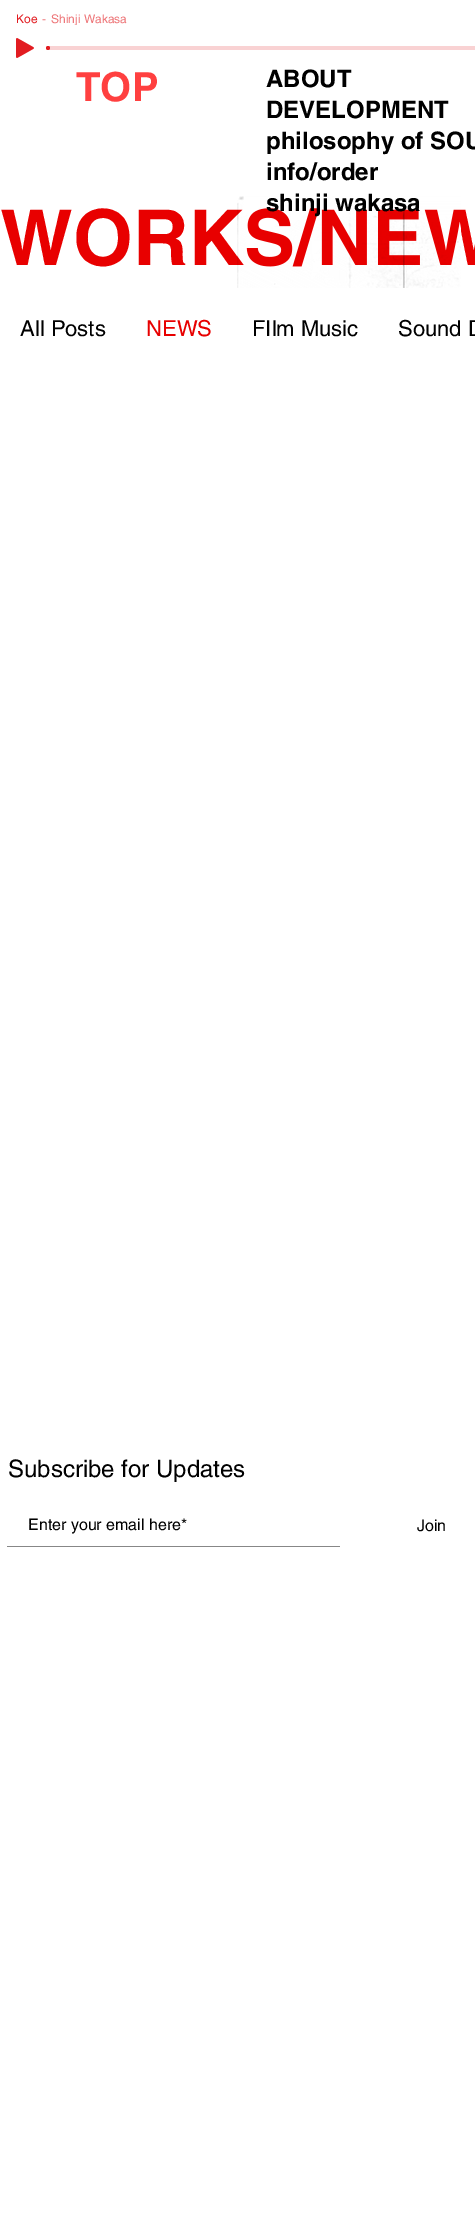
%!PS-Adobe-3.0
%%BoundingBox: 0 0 475 2231
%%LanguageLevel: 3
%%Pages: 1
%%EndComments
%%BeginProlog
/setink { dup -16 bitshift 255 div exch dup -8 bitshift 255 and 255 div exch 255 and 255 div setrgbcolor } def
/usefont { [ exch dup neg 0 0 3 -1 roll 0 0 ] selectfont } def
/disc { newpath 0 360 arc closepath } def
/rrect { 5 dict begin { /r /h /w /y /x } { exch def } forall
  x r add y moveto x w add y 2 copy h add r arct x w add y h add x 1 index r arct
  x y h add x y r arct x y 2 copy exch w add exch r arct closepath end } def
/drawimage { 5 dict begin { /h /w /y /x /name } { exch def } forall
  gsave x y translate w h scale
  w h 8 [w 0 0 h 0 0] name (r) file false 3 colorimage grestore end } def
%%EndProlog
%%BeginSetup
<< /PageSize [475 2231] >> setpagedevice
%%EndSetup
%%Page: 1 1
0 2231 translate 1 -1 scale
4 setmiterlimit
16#FFFFFF setink
0 0 475 2231 rectfill
/helvetica-Regular 12 usefont
16#E21C21 setink
16 23 moveto (Koe) show
16#EE777A setink
42 23 moveto (-) show
gsave
37 13 90 12 rectclip
51 23 moveto (Shinji Wakasa) show
grestore
(img1.raw) 16 38 18 20 drawimage
16#F9D2D3 setink
48 46 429 4 2 rrect fill
16#E21C21 setink
48 48 2 disc fill
/helvetica-Bold 40 usefont
16#FF4040 setink
76 101 moveto (TOP) show
/helvetica-Bold 24 usefont
16#000000 setink
[
    [(ABOUT) 266 87]
    [(DEVELOPMENT) 266 118]
    [(philosophy of SOU) 266 149]
    [(info/order) 266 180]
] { aload pop moveto show } forall
/helvetica-Bold 77 usefont
16#E80000 setink
0 265 moveto (WORKS/NEW) show
(img2.raw) 237 196 224 92 drawimage
/helvetica-Bold 24 usefont
16#000000 setink
266 211 moveto (shinji wakasa) show
/helvetica-Regular 22 usefont
20 336 moveto (All Posts) show
16#E80000 setink
146 336 moveto (NEWS) show
16#000000 setink
252 336 moveto (FIlm Music) show
398 336 moveto (Sound D) show
/helvetica-Regular 24 usefont
8 1477 moveto (Subscribe for Updates) show
16#878787 setink
7 1546 333 1 rectfill
/helvetica-Regular 16 usefont
16#000000 setink
28 1530 moveto (Enter your email here*) show
417 1531 moveto (Join) show
showpage
%%EOF
